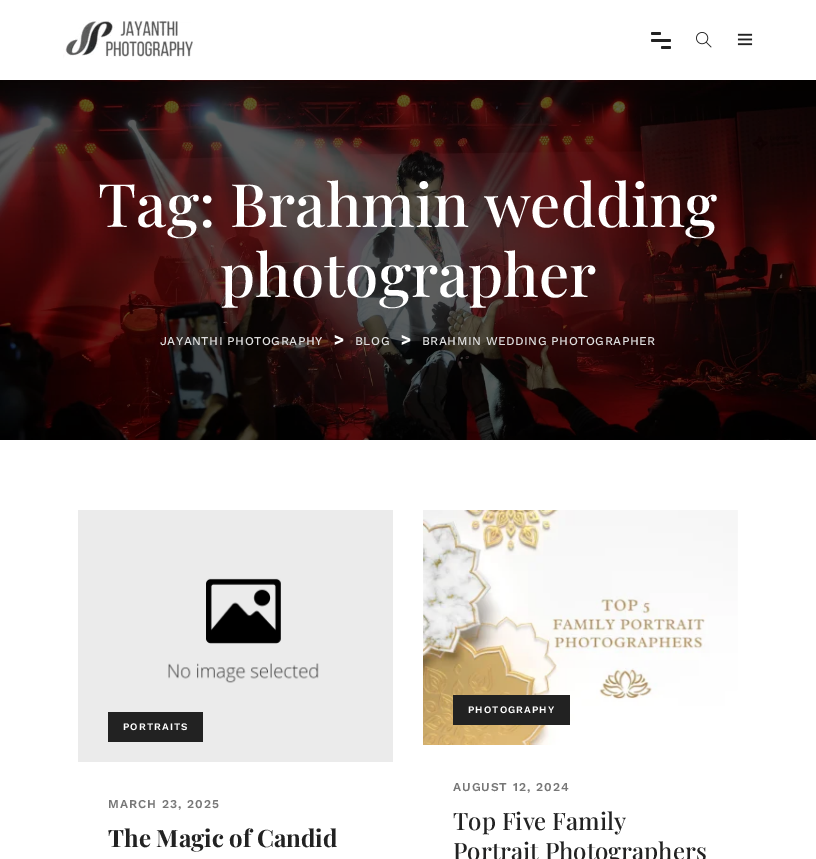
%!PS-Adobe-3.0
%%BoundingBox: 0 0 816 859
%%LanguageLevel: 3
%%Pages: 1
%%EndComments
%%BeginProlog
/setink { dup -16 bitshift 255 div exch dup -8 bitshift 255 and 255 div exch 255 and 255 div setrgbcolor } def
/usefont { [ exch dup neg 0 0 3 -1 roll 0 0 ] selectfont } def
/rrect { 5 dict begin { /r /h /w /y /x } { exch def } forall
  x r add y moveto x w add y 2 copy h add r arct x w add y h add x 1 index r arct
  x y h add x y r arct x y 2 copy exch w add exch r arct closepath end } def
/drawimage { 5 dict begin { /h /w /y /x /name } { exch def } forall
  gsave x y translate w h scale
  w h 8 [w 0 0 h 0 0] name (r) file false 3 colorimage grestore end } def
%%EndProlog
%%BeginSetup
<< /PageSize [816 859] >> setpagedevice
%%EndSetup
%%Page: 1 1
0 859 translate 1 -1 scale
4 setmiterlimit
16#FFFFFF setink
0 0 816 859 rectfill
(img1.raw) 63 20 132 40 drawimage
16#222222 setink
651 32 10 3 1.5 rrect fill
651 39 20 3 1.5 rrect fill
661 46 10 3 1.5 rrect fill
(img2.raw) 696 32 16 16 drawimage
(img3.raw) 737 33 16 13 drawimage
(img4.raw) 0 80 816 360 drawimage
/PlayfairDisplay-Medium 60 usefont
16#FFFFFF setink
98 227 moveto (Tag: Brahmin wedding) show
220 297 moveto (photographer) show
/WorkSans-Medium 12 usefont
16#DDDDDD setink
160 345 moveto 0.5 0 (JAYANTHI PHOTOGRAPHY) ashow
/WorkSans-Bold 17 usefont
16#FFFFFF setink
334 345 moveto (>) show
/WorkSans-Medium 12 usefont
16#DDDDDD setink
355 345 moveto 0.5 0 (BLOG) ashow
/WorkSans-Bold 17 usefont
16#FFFFFF setink
401 345 moveto (>) show
/WorkSans-Medium 12 usefont
16#DDDDDD setink
422 345 moveto 0.5 0 (BRAHMIN WEDDING PHOTOGRAPHER) ashow
(img5.raw) 78 510 315 252 drawimage
16#222222 setink
108 712 95 30 rectfill
/WorkSans-SemiBold 10 usefont
16#FFFFFF setink
123 730 moveto 1 0 (PORTRAITS) ashow
/WorkSans-SemiBold 12 usefont
16#777777 setink
108 808 moveto 1 0 (MARCH 23, 2025) ashow
/PlayfairDisplay-Bold 24 usefont
16#222222 setink
108 847 moveto (The Magic of Candid) show
(img6.raw) 423 510 315 235 drawimage
453 695 117 30 rectfill
/WorkSans-SemiBold 10 usefont
16#FFFFFF setink
468 713 moveto 1 0 (PHOTOGRAPHY) ashow
/WorkSans-SemiBold 12 usefont
16#777777 setink
453 791 moveto 1 0 (AUGUST 12, 2024) ashow
/PlayfairDisplay-Medium 24 usefont
16#222222 setink
453 830 moveto (Top Five Family) show
453 860 moveto (Portrait Photographers) show
showpage
%%EOF
